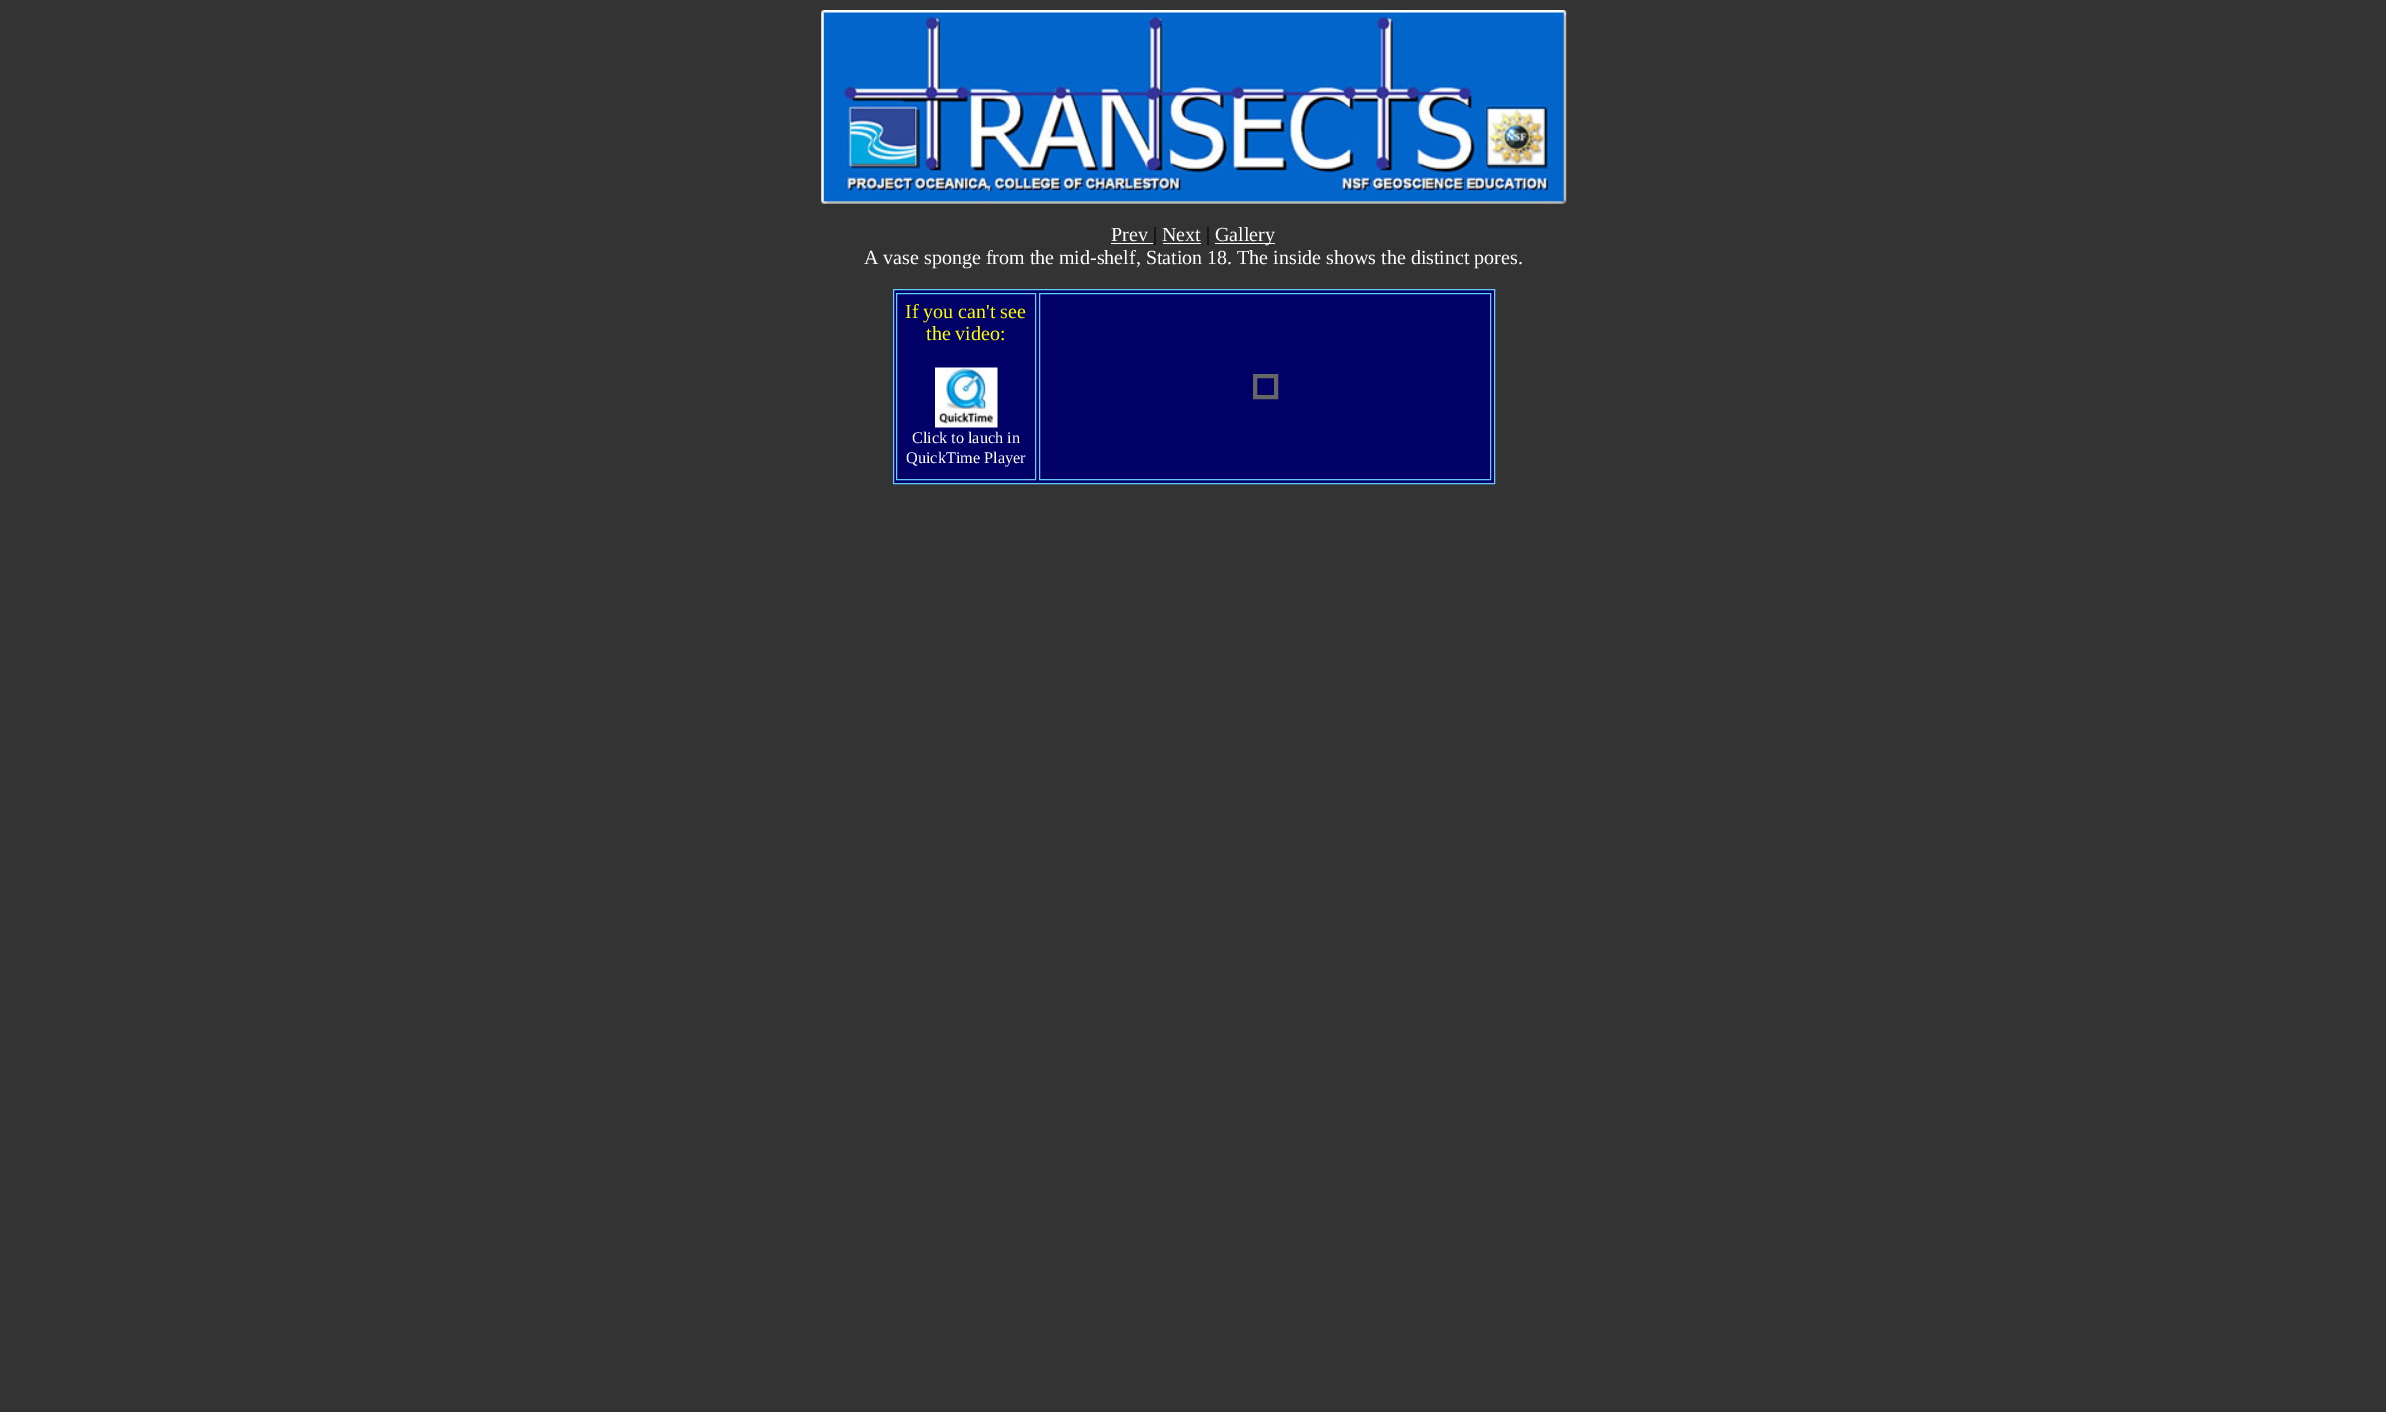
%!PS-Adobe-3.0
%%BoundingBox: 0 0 2386 1412
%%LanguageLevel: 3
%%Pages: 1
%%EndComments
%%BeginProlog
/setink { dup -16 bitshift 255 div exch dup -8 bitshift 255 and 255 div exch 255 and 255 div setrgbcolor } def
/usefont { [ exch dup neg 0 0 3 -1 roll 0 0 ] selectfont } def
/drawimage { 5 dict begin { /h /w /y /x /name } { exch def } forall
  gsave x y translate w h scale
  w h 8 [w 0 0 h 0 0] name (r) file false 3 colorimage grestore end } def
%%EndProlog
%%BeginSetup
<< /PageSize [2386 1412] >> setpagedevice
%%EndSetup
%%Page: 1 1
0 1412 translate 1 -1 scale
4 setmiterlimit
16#333333 setink
0 0 2386 1412 rectfill
(img1.raw) 821 10 746 194 drawimage
/LiberationSerif-Regular 20 usefont
16#FFFFFF setink
1111 241 moveto (Prev) show
1111 243 42 1 rectfill
16#000000 setink
1153 241 moveto (|) show
16#FFFFFF setink
1162 241 moveto (Next) show
1163 243 38 1 rectfill
16#000000 setink
1206 241 moveto (|) show
16#FFFFFF setink
1215 243 60 1 rectfill
1215 241 moveto (Gallery) show
864 264 moveto (A vase sponge from the mid-shelf, Station 18. The inside shows the distinct pores.) show
16#000066 setink
893.5 289.5 moveto 1494.5 289.5 lineto 1494.5 483.5 lineto 893.5 483.5 lineto closepath gsave fill grestore
16#66CCFF setink
stroke
896.5 293.5 139 186 rectstroke
16#FFFF00 setink
905 318 moveto (If you can't see) show
926 340 moveto (the video:) show
(img2.raw) 935 367 63 61 drawimage
/LiberationSerif-Regular 16.25 usefont
16#FFFFFF setink
912 443 moveto (Click to lauch in) show
906 463 moveto (QuickTime Player) show
16#66CCFF setink
1039.5 293.5 451 186 rectstroke
16#666666 setink
4 setlinewidth
1255 376 21 21 rectstroke
showpage
%%EOF
